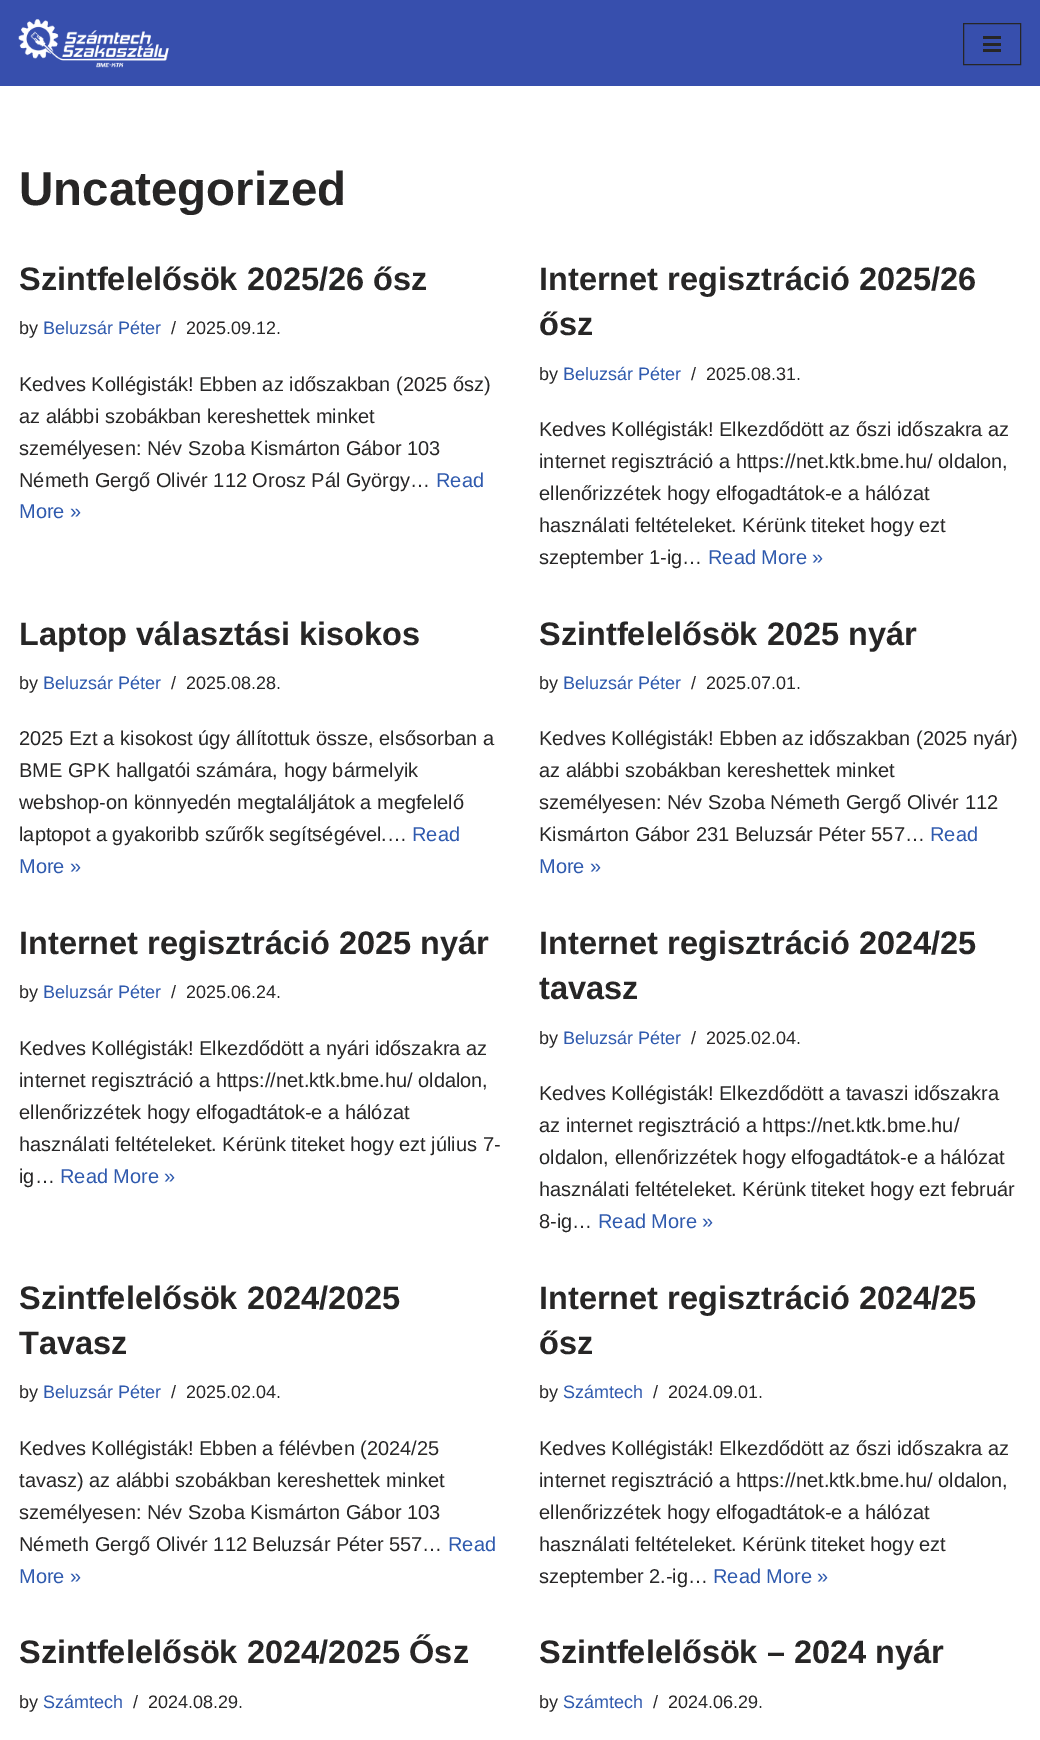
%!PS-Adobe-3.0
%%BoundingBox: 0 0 1040 1740
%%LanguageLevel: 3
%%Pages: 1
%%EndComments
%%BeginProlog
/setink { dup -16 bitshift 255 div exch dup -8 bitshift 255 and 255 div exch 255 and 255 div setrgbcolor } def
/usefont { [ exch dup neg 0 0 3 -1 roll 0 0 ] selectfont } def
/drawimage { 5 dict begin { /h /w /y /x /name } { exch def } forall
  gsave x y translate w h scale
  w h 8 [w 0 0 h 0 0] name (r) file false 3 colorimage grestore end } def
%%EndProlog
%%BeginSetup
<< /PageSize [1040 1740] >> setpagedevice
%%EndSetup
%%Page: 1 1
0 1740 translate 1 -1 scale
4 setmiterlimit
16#FFFFFF setink
0 0 1040 1740 rectfill
16#374FAD setink
0 0 1040 86 rectfill
(img1.raw) 18 19 151 49 drawimage
16#272626 setink
963.5 23.5 57 41 rectstroke
[
    [983 36 18 3 16#272626]
    [983 43 18 3 16#272626]
    [983 49 18 3 16#272626]
] { aload pop setink rectfill } forall
/LiberationSans-Bold 47.5 usefont
19 205 moveto (Uncategorized) show
/LiberationSans-Bold 32.5 usefont
19 290 moveto (Szintfelelősök 2025/26 ősz) show
/LiberationSans-Regular 18 usefont
19 334 moveto (by) show
16#2F5AAE setink
43 334 moveto (Beluzsár Péter) show
16#272626 setink
171 334 moveto (/) show
186 334 moveto (2025.09.12.) show
/LiberationSans-Regular 20 usefont
[
    [(Kedves Kollégisták! Ebben az időszakban \(2025 ősz\)) 19 391]
    [(az alábbi szobákban kereshettek minket) 19 423]
    [(személyesen: Név Szoba Kismárton Gábor 103) 19 455]
    [(Németh Gergő Olivér 112 Orosz Pál György…) 19 487]
] { aload pop moveto show } forall
16#2F5AAE setink
436 487 moveto (Read) show
19 518 moveto (More ») show
/LiberationSans-Bold 32.5 usefont
16#272626 setink
539 290 moveto (Internet regisztráció 2025/26) show
539 335 moveto (ősz) show
/LiberationSans-Regular 18 usefont
539 380 moveto (by) show
16#2F5AAE setink
563 380 moveto (Beluzsár Péter) show
16#272626 setink
691 380 moveto (/) show
706 380 moveto (2025.08.31.) show
/LiberationSans-Regular 20 usefont
[
    [(Kedves Kollégisták! Elkezdődött az őszi időszakra az) 539 436]
    [(internet regisztráció a https://net.ktk.bme.hu/ oldalon,) 539 468]
    [(ellenőrizzétek hogy elfogadtátok-e a hálózat) 539 500]
    [(használati feltételeket. Kérünk titeket hogy ezt) 539 532]
    [(szeptember 1-ig…) 539 564]
] { aload pop moveto show } forall
16#2F5AAE setink
708 564 moveto (Read More ») show
/LiberationSans-Bold 32.5 usefont
16#272626 setink
19 645 moveto (Laptop választási kisokos) show
/LiberationSans-Regular 18 usefont
19 689 moveto (by) show
16#2F5AAE setink
43 689 moveto (Beluzsár Péter) show
16#272626 setink
171 689 moveto (/) show
186 689 moveto (2025.08.28.) show
/LiberationSans-Regular 20 usefont
[
    [(2025 Ezt a kisokost úgy állítottuk össze, elsősorban a) 19 745]
    [(BME GPK hallgatói számára, hogy bármelyik) 19 777]
    [(webshop-on könnyedén megtaláljátok a megfelelő) 19 809]
    [(laptopot a gyakoribb szűrők segítségével.…) 19 841]
] { aload pop moveto show } forall
16#2F5AAE setink
412 841 moveto (Read) show
19 873 moveto (More ») show
/LiberationSans-Bold 32.5 usefont
16#272626 setink
539 645 moveto (Szintfelelősök 2025 nyár) show
/LiberationSans-Regular 18 usefont
539 689 moveto (by) show
16#2F5AAE setink
563 689 moveto (Beluzsár Péter) show
16#272626 setink
691 689 moveto (/) show
706 689 moveto (2025.07.01.) show
/LiberationSans-Regular 20 usefont
[
    [(Kedves Kollégisták! Ebben az időszakban \(2025 nyár\)) 539 745]
    [(az alábbi szobákban kereshettek minket) 539 777]
    [(személyesen: Név Szoba Németh Gergő Olivér 112) 539 809]
    [(Kismárton Gábor 231 Beluzsár Péter 557…) 539 841]
] { aload pop moveto show } forall
16#2F5AAE setink
930 841 moveto (Read) show
539 873 moveto (More ») show
/LiberationSans-Bold 32.5 usefont
16#272626 setink
19 954 moveto (Internet regisztráció 2025 nyár) show
/LiberationSans-Regular 18 usefont
19 998 moveto (by) show
16#2F5AAE setink
43 998 moveto (Beluzsár Péter) show
16#272626 setink
171 998 moveto (/) show
186 998 moveto (2025.06.24.) show
/LiberationSans-Regular 20 usefont
[
    [(Kedves Kollégisták! Elkezdődött a nyári időszakra az) 19 1055]
    [(internet regisztráció a https://net.ktk.bme.hu/ oldalon,) 19 1087]
    [(ellenőrizzétek hogy elfogadtátok-e a hálózat) 19 1119]
    [(használati feltételeket. Kérünk titeket hogy ezt július 7-) 19 1151]
    [(ig…) 19 1183]
] { aload pop moveto show } forall
16#2F5AAE setink
60 1183 moveto (Read More ») show
/LiberationSans-Bold 32.5 usefont
16#272626 setink
539 954 moveto (Internet regisztráció 2024/25) show
539 999 moveto (tavasz) show
/LiberationSans-Regular 18 usefont
539 1044 moveto (by) show
16#2F5AAE setink
563 1044 moveto (Beluzsár Péter) show
16#272626 setink
691 1044 moveto (/) show
706 1044 moveto (2025.02.04.) show
/LiberationSans-Regular 20 usefont
[
    [(Kedves Kollégisták! Elkezdődött a tavaszi időszakra) 539 1100]
    [(az internet regisztráció a https://net.ktk.bme.hu/) 539 1132]
    [(oldalon, ellenőrizzétek hogy elfogadtátok-e a hálózat) 539 1164]
    [(használati feltételeket. Kérünk titeket hogy ezt február) 539 1196]
    [(8-ig…) 539 1228]
] { aload pop moveto show } forall
16#2F5AAE setink
598 1228 moveto (Read More ») show
/LiberationSans-Bold 32.5 usefont
16#272626 setink
19 1309 moveto (Szintfelelősök 2024/2025) show
19 1354 moveto (Tavasz) show
/LiberationSans-Regular 18 usefont
19 1398 moveto (by) show
16#2F5AAE setink
43 1398 moveto (Beluzsár Péter) show
16#272626 setink
171 1398 moveto (/) show
186 1398 moveto (2025.02.04.) show
/LiberationSans-Regular 20 usefont
[
    [(Kedves Kollégisták! Ebben a félévben \(2024/25) 19 1455]
    [(tavasz\) az alábbi szobákban kereshettek minket) 19 1487]
    [(személyesen: Név Szoba Kismárton Gábor 103) 19 1519]
    [(Németh Gergő Olivér 112 Beluzsár Péter 557…) 19 1551]
] { aload pop moveto show } forall
16#2F5AAE setink
448 1551 moveto (Read) show
19 1583 moveto (More ») show
/LiberationSans-Bold 32.5 usefont
16#272626 setink
539 1309 moveto (Internet regisztráció 2024/25) show
539 1354 moveto (ősz) show
/LiberationSans-Regular 18 usefont
539 1398 moveto (by) show
16#2F5AAE setink
563 1398 moveto (Számtech) show
16#272626 setink
653 1398 moveto (/) show
668 1398 moveto (2024.09.01.) show
/LiberationSans-Regular 20 usefont
[
    [(Kedves Kollégisták! Elkezdődött az őszi időszakra az) 539 1455]
    [(internet regisztráció a https://net.ktk.bme.hu/ oldalon,) 539 1487]
    [(ellenőrizzétek hogy elfogadtátok-e a hálózat) 539 1519]
    [(használati feltételeket. Kérünk titeket hogy ezt) 539 1551]
    [(szeptember 2.-ig…) 539 1583]
] { aload pop moveto show } forall
16#2F5AAE setink
713 1583 moveto (Read More ») show
/LiberationSans-Bold 32.5 usefont
16#272626 setink
19 1663 moveto (Szintfelelősök 2024/2025 Ősz) show
/LiberationSans-Regular 18 usefont
19 1708 moveto (by) show
16#2F5AAE setink
43 1708 moveto (Számtech) show
16#272626 setink
133 1708 moveto (/) show
148 1708 moveto (2024.08.29.) show
/LiberationSans-Bold 32.5 usefont
539 1663 moveto (Szintfelelősök – 2024 nyár) show
/LiberationSans-Regular 18 usefont
539 1708 moveto (by) show
16#2F5AAE setink
563 1708 moveto (Számtech) show
16#272626 setink
653 1708 moveto (/) show
668 1708 moveto (2024.06.29.) show
showpage
%%EOF
